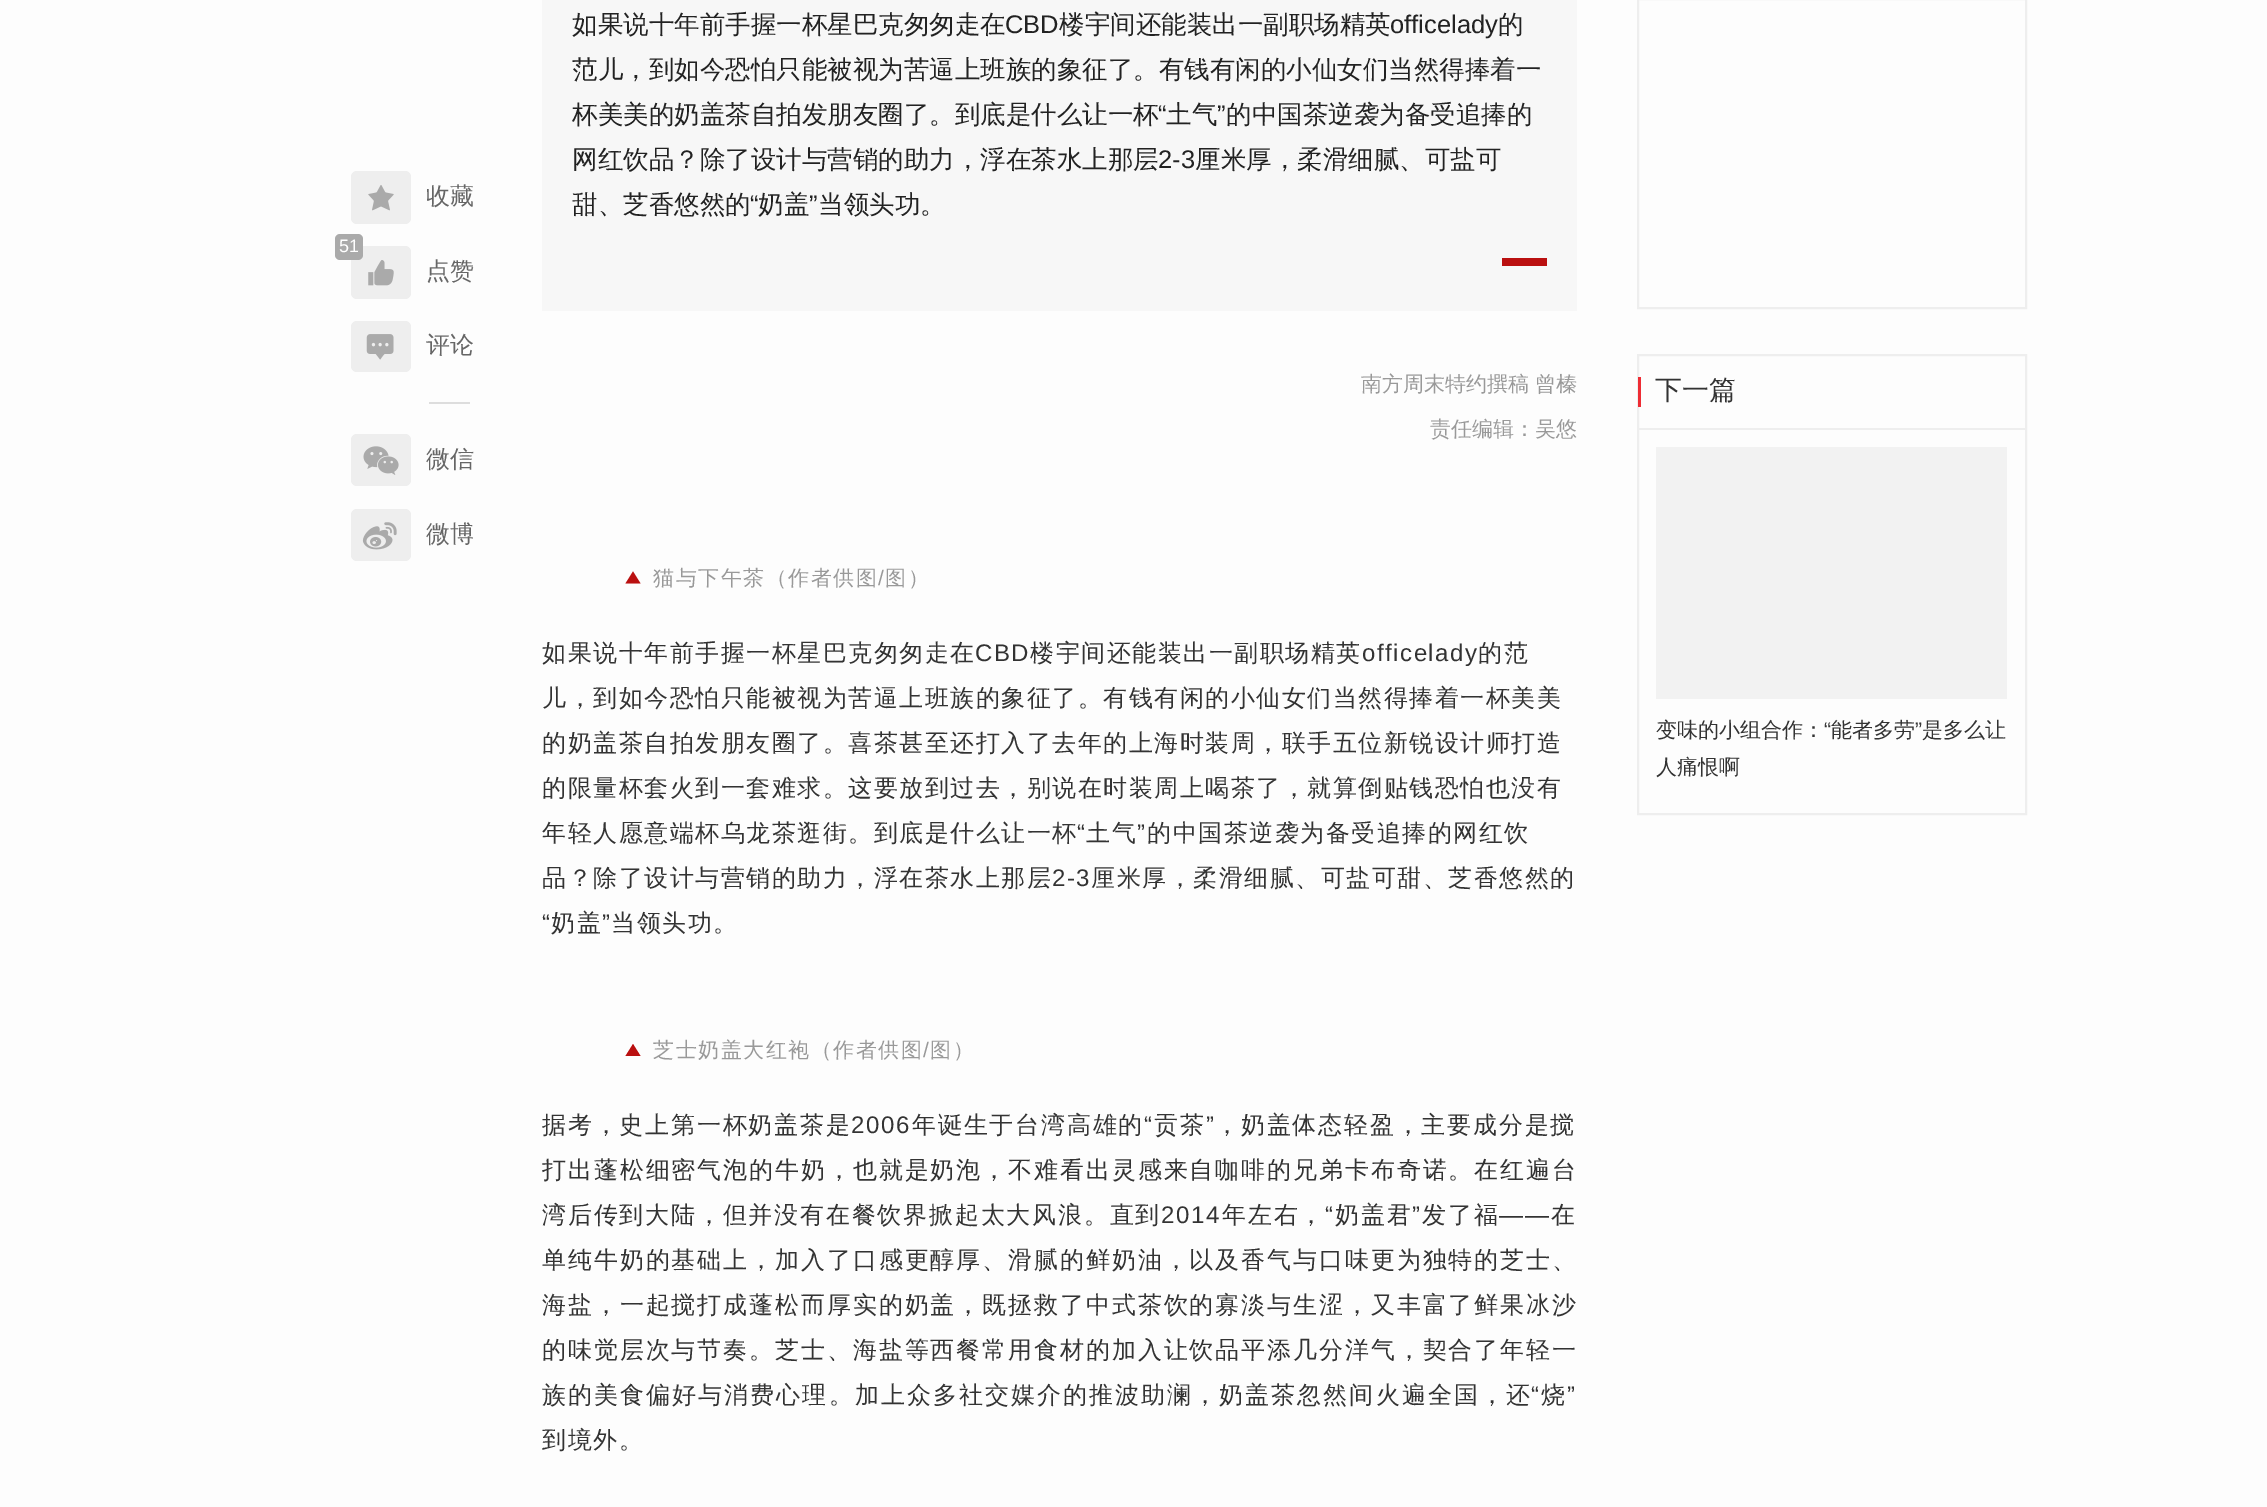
%!PS-Adobe-3.0
%%BoundingBox: 0 0 2267 1507
%%LanguageLevel: 3
%%Pages: 1
%%EndComments
%%BeginProlog
/setink { dup -16 bitshift 255 div exch dup -8 bitshift 255 and 255 div exch 255 and 255 div setrgbcolor } def
/usefont { [ exch dup neg 0 0 3 -1 roll 0 0 ] selectfont } def
/rrect { 5 dict begin { /r /h /w /y /x } { exch def } forall
  x r add y moveto x w add y 2 copy h add r arct x w add y h add x 1 index r arct
  x y h add x y r arct x y 2 copy exch w add exch r arct closepath end } def
/drawimage { 5 dict begin { /h /w /y /x /name } { exch def } forall
  gsave x y translate w h scale
  w h 8 [w 0 0 h 0 0] name (r) file false 3 colorimage grestore end } def
%%EndProlog
%%BeginSetup
<< /PageSize [2267 1507] >> setpagedevice
%%EndSetup
%%Page: 1 1
0 1507 translate 1 -1 scale
4 setmiterlimit
16#FDFDFD setink
0 0 2267 1507 rectfill
16#EEEEEE setink
351 171 60 53 6 rrect fill
(img1.raw) 368 185 26 26 drawimage
/WenQuanYiZenHei-Medium 24 usefont
16#666666 setink
426 204 moveto (收藏) show
16#EEEEEE setink
351 246 60 53 6 rrect fill
16#AAAAAA setink
335 234 28 26 5 rrect fill
/LiberationSans-Regular 18 usefont
16#FFFFFF setink
339 252 moveto (51) show
(img2.raw) 368 260 26 26 drawimage
/WenQuanYiZenHei-Medium 24 usefont
16#666666 setink
426 279 moveto (点赞) show
16#EEEEEE setink
351 321 60 51 6 rrect fill
(img3.raw) 366 334 28 26 drawimage
16#666666 setink
426 353 moveto (评论) show
16#DDDDDD setink
429 402 41 2 rectfill
16#EEEEEE setink
351 434 60 52 6 rrect fill
(img4.raw) 363 446 36 29 drawimage
16#666666 setink
426 467 moveto (微信) show
16#EEEEEE setink
351 509 60 52 6 rrect fill
(img5.raw) 362 522 35 28 drawimage
16#666666 setink
426 542 moveto (微博) show
16#F7F7F7 setink
542 0 1035 311 rectfill
/WenQuanYiZenHei-Medium 25.5 usefont
16#222222 setink
572 33 moveto (如果说十年前手握一杯星巴克匆匆走在) show
/LiberationSans-Regular 25.5 usefont
1005 33 moveto (CBD) show
/WenQuanYiZenHei-Medium 25.5 usefont
1059 33 moveto (楼宇间还能装出一副职场精英) show
/LiberationSans-Regular 25.5 usefont
1390 33 moveto (officelady) show
/WenQuanYiZenHei-Medium 25.5 usefont
[
    [(的) 1498 33]
    [(范儿，到如今恐怕只能被视为苦逼上班族的象征了。有钱有闲的小仙女们当然得捧着一) 572 78]
    [(杯美美的奶盖茶自拍发朋友圈了。到底是什么让一杯) 572 123]
] { aload pop moveto show } forall
/LiberationSans-Regular 25.5 usefont
1158 123 moveto (“) show
/WenQuanYiZenHei-Medium 25.5 usefont
1166 123 moveto (土气) show
/LiberationSans-Regular 25.5 usefont
1217 123 moveto (”) show
/WenQuanYiZenHei-Medium 25.5 usefont
1226 123 moveto (的中国茶逆袭为备受追捧的) show
572 168 moveto (网红饮品？除了设计与营销的助力，浮在茶水上那层) show
/LiberationSans-Regular 25.5 usefont
1158 168 moveto (2-3) show
/WenQuanYiZenHei-Medium 25.5 usefont
1195 168 moveto (厘米厚，柔滑细腻、可盐可) show
572 213 moveto (甜、芝香悠然的) show
/LiberationSans-Regular 25.5 usefont
750 213 moveto (“) show
/WenQuanYiZenHei-Medium 25.5 usefont
758 213 moveto (奶盖) show
/LiberationSans-Regular 25.5 usefont
809 213 moveto (”) show
/WenQuanYiZenHei-Medium 25.5 usefont
818 213 moveto (当领头功。) show
16#BA1010 setink
1502 258 45 8 rectfill
/WenQuanYiZenHei-Medium 21 usefont
16#999999 setink
1361 391 moveto (南方周末特约撰稿 曾榛) show
1430 436 moveto (责任编辑：吴悠) show
16#BA1010 setink
640.5 583.5 moveto 625.5 583.5 lineto 633 571.5 lineto closepath fill
16#999999 setink
653 585 moveto 1.5 0 (猫与下午茶（作者供图) ashow
/LiberationSans-Regular 21 usefont
878 585 moveto 1.5 0 (/) ashow
/WenQuanYiZenHei-Medium 21 usefont
885 585 moveto 1.5 0 (图）) ashow
/WenQuanYiZenHei-Medium 24 usefont
16#333333 setink
542 661 moveto 1.5 0 (如果说十年前手握一杯星巴克匆匆走在) ashow
/LiberationSans-Regular 24 usefont
975 661 moveto 1.5 0 (CBD) ashow
/WenQuanYiZenHei-Medium 24 usefont
1030 661 moveto 1.5 0 (楼宇间还能装出一副职场精英) ashow
/LiberationSans-Regular 24 usefont
1362 661 moveto 1.5 0 (officelady) ashow
/WenQuanYiZenHei-Medium 24 usefont
1478 661 moveto 1.5 0 (的范) ashow
542 706 moveto 1.5 0 (儿，到如今恐怕只能被视为苦逼上班族的象征了。有钱有闲的小仙女们当然得捧着一杯美美) ashow
542 751 moveto 1.5 0 (的奶盖茶自拍发朋友圈了。喜茶甚至还打入了去年的上海时装周，联手五位新锐设计师打造) ashow
542 796 moveto 1.5 0 (的限量杯套火到一套难求。这要放到过去，别说在时装周上喝茶了，就算倒贴钱恐怕也没有) ashow
542 841 moveto 1.5 0 (年轻人愿意端杯乌龙茶逛街。到底是什么让一杯) ashow
/LiberationSans-Regular 24 usefont
1077 841 moveto 1.5 0 (“) ashow
/WenQuanYiZenHei-Medium 24 usefont
1086 841 moveto 1.5 0 (土气) ashow
/LiberationSans-Regular 24 usefont
1137 841 moveto 1.5 0 (”) ashow
/WenQuanYiZenHei-Medium 24 usefont
1147 841 moveto 1.5 0 (的中国茶逆袭为备受追捧的网红饮) ashow
542 886 moveto 1.5 0 (品？除了设计与营销的助力，浮在茶水上那层) ashow
/LiberationSans-Regular 24 usefont
1052 886 moveto 1.5 0 (2-3) ashow
/WenQuanYiZenHei-Medium 24 usefont
1091 886 moveto 1.5 0 (厘米厚，柔滑细腻、可盐可甜、芝香悠然的) ashow
/LiberationSans-Regular 24 usefont
542 931 moveto 1.5 0 (“) ashow
/WenQuanYiZenHei-Medium 24 usefont
551 931 moveto 1.5 0 (奶盖) ashow
/LiberationSans-Regular 24 usefont
602 931 moveto 1.5 0 (”) ashow
/WenQuanYiZenHei-Medium 24 usefont
611 931 moveto 1.5 0 (当领头功。) ashow
16#BA1010 setink
640.5 1056 moveto 625.5 1056 lineto 633 1044 lineto closepath fill
/WenQuanYiZenHei-Medium 21 usefont
16#999999 setink
653 1057 moveto 1.5 0 (芝士奶盖大红袍（作者供图) ashow
/LiberationSans-Regular 21 usefont
923 1057 moveto 1.5 0 (/) ashow
/WenQuanYiZenHei-Medium 21 usefont
930 1057 moveto 1.5 0 (图）) ashow
/WenQuanYiZenHei-Medium 24 usefont
16#333333 setink
542 1133 moveto 1.8 0 (据考，史上第一杯奶盖茶是) ashow
/LiberationSans-Regular 24 usefont
851 1133 moveto 1.8 0 (2006) ashow
/WenQuanYiZenHei-Medium 24 usefont
912 1133 moveto 1.8 0 (年诞生于台湾高雄的) ashow
/LiberationSans-Regular 24 usefont
1144 1133 moveto 1.8 0 (“) ashow
/WenQuanYiZenHei-Medium 24 usefont
1154 1133 moveto 1.8 0 (贡茶) ashow
/LiberationSans-Regular 24 usefont
1206 1133 moveto 1.8 0 (”) ashow
/WenQuanYiZenHei-Medium 24 usefont
1215 1133 moveto 1.8 0 (，奶盖体态轻盈，主要成分是搅) ashow
542 1178 moveto 1.9 0 (打出蓬松细密气泡的牛奶，也就是奶泡，不难看出灵感来自咖啡的兄弟卡布奇诺。在红遍台) ashow
542 1223 moveto 1.8 0 (湾后传到大陆，但并没有在餐饮界掀起太大风浪。直到) ashow
/LiberationSans-Regular 24 usefont
1161 1223 moveto 1.8 0 (2014) ashow
/WenQuanYiZenHei-Medium 24 usefont
1222 1223 moveto 1.8 0 (年左右，) ashow
/LiberationSans-Regular 24 usefont
1325 1223 moveto 1.8 0 (“) ashow
/WenQuanYiZenHei-Medium 24 usefont
1335 1223 moveto 1.8 0 (奶盖君) ashow
/LiberationSans-Regular 24 usefont
1412 1223 moveto 1.8 0 (”) ashow
/WenQuanYiZenHei-Medium 24 usefont
1422 1223 moveto 1.8 0 (发了福) ashow
1551 1223 moveto 1.8 0 (在) ashow
/LiberationSans-Regular 24 usefont
1499 1223 moveto 1.8 0 (——) ashow
/WenQuanYiZenHei-Medium 24 usefont
542 1268 moveto 1.9 0 (单纯牛奶的基础上，加入了口感更醇厚、滑腻的鲜奶油，以及香气与口味更为独特的芝士、) ashow
542 1313 moveto 1.9 0 (海盐，一起搅打成蓬松而厚实的奶盖，既拯救了中式茶饮的寡淡与生涩，又丰富了鲜果冰沙) ashow
542 1358 moveto 1.9 0 (的味觉层次与节奏。芝士、海盐等西餐常用食材的加入让饮品平添几分洋气，契合了年轻一) ashow
542 1403 moveto 2.05 0 (族的美食偏好与消费心理。加上众多社交媒介的推波助澜，奶盖茶忽然间火遍全国，还) ashow
/LiberationSans-Regular 24 usefont
1531 1403 moveto 2.05 0 (“) ashow
/WenQuanYiZenHei-Medium 24 usefont
1541 1403 moveto 2.05 0 (烧) ashow
/LiberationSans-Regular 24 usefont
1567 1403 moveto 2.05 0 (”) ashow
/WenQuanYiZenHei-Medium 24 usefont
542 1448 moveto 1.5 0 (到境外。) ashow
16#EEEEEE setink
2 setlinewidth
1638 -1 388 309 rectstroke
1638 355 388 459 rectstroke
1638 428 387 2 rectfill
16#EE2C34 setink
1638 377 3 30 rectfill
/WenQuanYiZenHei-Medium 27 usefont
16#333333 setink
1655 399 moveto (下一篇) show
16#F2F2F2 setink
1656 447 351 252 rectfill
/WenQuanYiZenHei-Medium 21 usefont
16#333333 setink
1656 737 moveto (变味的小组合作：) show
/LiberationSans-Regular 21 usefont
1824 737 moveto (“) show
/WenQuanYiZenHei-Medium 21 usefont
1831 737 moveto (能者多劳) show
/LiberationSans-Regular 21 usefont
1915 737 moveto (”) show
/WenQuanYiZenHei-Medium 21 usefont
1922 737 moveto (是多么让) show
1656 774 moveto (人痛恨啊) show
showpage
%%EOF
